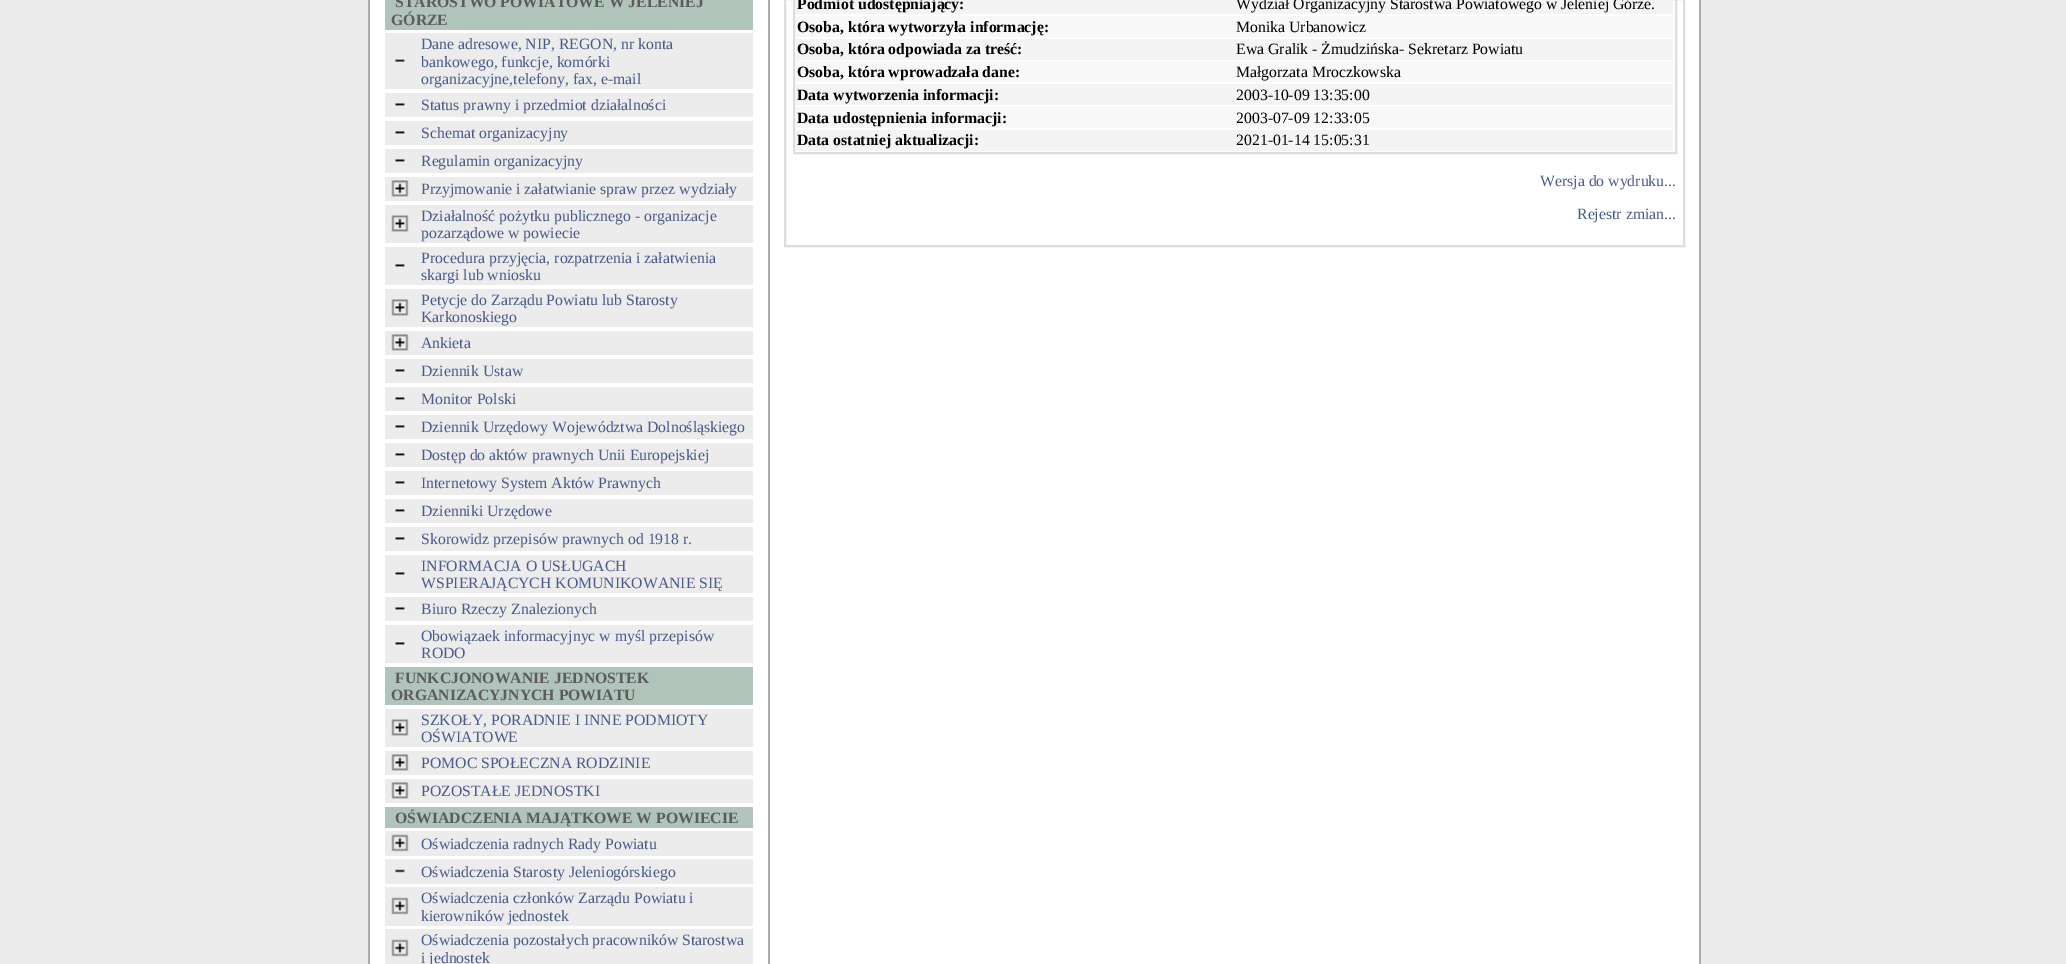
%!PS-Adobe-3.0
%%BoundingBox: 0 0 2066 964
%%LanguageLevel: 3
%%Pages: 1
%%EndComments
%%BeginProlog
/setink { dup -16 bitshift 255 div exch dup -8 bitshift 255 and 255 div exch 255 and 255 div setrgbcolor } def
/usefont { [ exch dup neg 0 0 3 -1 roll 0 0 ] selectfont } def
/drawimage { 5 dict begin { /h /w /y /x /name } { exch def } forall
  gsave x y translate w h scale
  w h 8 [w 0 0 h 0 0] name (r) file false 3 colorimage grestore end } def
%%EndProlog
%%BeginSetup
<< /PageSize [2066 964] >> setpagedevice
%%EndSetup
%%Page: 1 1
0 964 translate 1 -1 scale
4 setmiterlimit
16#ECECEC setink
0 0 2066 964 rectfill
[
    [370 0 1329 964 16#FFFFFF]
    [1699 0 2 964 16#ABABAB]
    [368 0 2 964 16#ABABAB]
    [385 0 368 30 16#B0C4BB]
] { aload pop setink rectfill } forall
/LiberationSerif-Bold 15.75 usefont
16#5C5C5C setink
395 7 moveto (STAROSTWO POWIATOWE W JELENIEJ) show
391 25 moveto (GÓRZE) show
16#ECECEC setink
385 33 368 56 rectfill
(img1.raw) 395 59 10 3 drawimage
/LiberationSerif-Regular 15.75 usefont
16#4A5A8B setink
[
    [(Dane adresowe, NIP, REGON, nr konta) 421 49]
    [(bankowego, funkcje, komórki) 421 67]
    [(organizacyjne,telefony, fax, e-mail) 421 84]
] { aload pop moveto show } forall
16#ECECEC setink
385 93 368 24 rectfill
(img2.raw) 395 103 10 3 drawimage
16#4A5A8B setink
421 110 moveto (Status prawny i przedmiot działalności) show
16#ECECEC setink
385 121 368 24 rectfill
(img2.raw) 395 131 10 3 drawimage
16#4A5A8B setink
421 138 moveto (Schemat organizacyjny) show
16#ECECEC setink
385 149 368 24 rectfill
(img2.raw) 395 159 10 3 drawimage
16#4A5A8B setink
421 166 moveto (Regulamin organizacyjny) show
16#ECECEC setink
385 177 368 24 rectfill
(img3.raw) 391 180 18 17 drawimage
16#4A5A8B setink
421 194 moveto (Przyjmowanie i załatwianie spraw przez wydziały) show
16#ECECEC setink
385 205 368 38 rectfill
(img3.raw) 391 215 18 17 drawimage
16#4A5A8B setink
421 221 moveto (Działalność pożytku publicznego - organizacje) show
421 238 moveto (pozarządowe w powiecie) show
16#ECECEC setink
385 247 368 38 rectfill
(img2.raw) 395 264 10 3 drawimage
16#4A5A8B setink
421 263 moveto (Procedura przyjęcia, rozpatrzenia i załatwienia) show
421 280 moveto (skargi lub wniosku) show
16#ECECEC setink
385 289 368 38 rectfill
(img3.raw) 391 299 18 17 drawimage
16#4A5A8B setink
421 305 moveto (Petycje do Zarządu Powiatu lub Starosty) show
421 322 moveto (Karkonoskiego) show
16#ECECEC setink
385 331 368 24 rectfill
(img3.raw) 391 334 18 17 drawimage
16#4A5A8B setink
421 348 moveto (Ankieta) show
16#ECECEC setink
385 359 368 24 rectfill
(img2.raw) 395 369 10 3 drawimage
16#4A5A8B setink
421 376 moveto (Dziennik Ustaw) show
16#ECECEC setink
385 387 368 24 rectfill
(img2.raw) 395 397 10 3 drawimage
16#4A5A8B setink
421 404 moveto (Monitor Polski) show
16#ECECEC setink
385 415 368 24 rectfill
(img2.raw) 395 425 10 3 drawimage
16#4A5A8B setink
421 432 moveto (Dziennik Urzędowy Województwa Dolnośląskiego) show
16#ECECEC setink
385 443 368 24 rectfill
(img2.raw) 395 453 10 3 drawimage
16#4A5A8B setink
421 460 moveto (Dostęp do aktów prawnych Unii Europejskiej) show
16#ECECEC setink
385 471 368 24 rectfill
(img2.raw) 395 481 10 3 drawimage
16#4A5A8B setink
421 488 moveto (Internetowy System Aktów Prawnych) show
16#ECECEC setink
385 499 368 24 rectfill
(img2.raw) 395 509 10 3 drawimage
16#4A5A8B setink
421 516 moveto (Dzienniki Urzędowe) show
16#ECECEC setink
385 527 368 24 rectfill
(img2.raw) 395 537 10 3 drawimage
16#4A5A8B setink
421 544 moveto (Skorowidz przepisów prawnych od 1918 r.) show
16#ECECEC setink
385 555 368 38 rectfill
(img2.raw) 395 572 10 3 drawimage
16#4A5A8B setink
421 571 moveto (INFORMACJA O USŁUGACH) show
421 588 moveto (WSPIERAJĄCYCH KOMUNIKOWANIE SIĘ) show
16#ECECEC setink
385 597 368 24 rectfill
(img2.raw) 395 607 10 3 drawimage
16#4A5A8B setink
421 614 moveto (Biuro Rzeczy Znalezionych) show
16#ECECEC setink
385 625 368 38 rectfill
(img2.raw) 395 642 10 3 drawimage
16#4A5A8B setink
421 641 moveto (Obowiązaek informacyjnyc w myśl przepisów) show
421 658 moveto (RODO) show
16#B0C4BB setink
385 667 368 38 rectfill
/LiberationSerif-Bold 15.75 usefont
16#5C5C5C setink
395 683 moveto (FUNKCJONOWANIE JEDNOSTEK) show
391 700 moveto (ORGANIZACYJNYCH POWIATU) show
16#ECECEC setink
385 709 368 38 rectfill
(img3.raw) 391 719 18 17 drawimage
/LiberationSerif-Regular 15.75 usefont
16#4A5A8B setink
421 725 moveto (SZKOŁY, PORADNIE I INNE PODMIOTY) show
421 742 moveto (OŚWIATOWE) show
16#ECECEC setink
385 751 368 24 rectfill
(img3.raw) 391 754 18 17 drawimage
16#4A5A8B setink
421 768 moveto (POMOC SPOŁECZNA RODZINIE) show
16#ECECEC setink
385 779 368 24 rectfill
(img3.raw) 391 782 18 17 drawimage
16#4A5A8B setink
421 796 moveto (POZOSTAŁE JEDNOSTKI) show
16#B0C4BB setink
385 807 368 21 rectfill
/LiberationSerif-Bold 15.75 usefont
16#5C5C5C setink
395 823 moveto (OŚWIADCZENIA MAJĄTKOWE W POWIECIE) show
16#ECECEC setink
385 831 368 25 rectfill
(img4.raw) 391 834 18 18 drawimage
/LiberationSerif-Regular 15.75 usefont
16#4A5A8B setink
421 849 moveto (Oświadczenia radnych Rady Powiatu) show
16#ECECEC setink
385 859 368 25 rectfill
(img5.raw) 395 869 10 4 drawimage
16#4A5A8B setink
421 877 moveto (Oświadczenia Starosty Jeleniogórskiego) show
16#ECECEC setink
385 887 368 39 rectfill
(img4.raw) 391 897 18 18 drawimage
16#4A5A8B setink
421 903 moveto (Oświadczenia członków Zarządu Powiatu i) show
421 921 moveto (kierowników jednostek) show
16#ECECEC setink
385 929 368 35 rectfill
(img4.raw) 391 939 18 18 drawimage
16#4A5A8B setink
421 945 moveto (Oświadczenia pozostałych pracowników Starostwa) show
421 963 moveto (i jednostek) show
16#ABABAB setink
768 0 2 964 rectfill
16#DDDDDD setink
2 setlinewidth
785 -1 899 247 rectstroke
794 -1 882 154 rectstroke
16#F4F4F4 setink
796 0 877 14 rectfill
/LiberationSerif-Bold 15.75 usefont
16#000000 setink
797 9 moveto (Podmiot udostępniający:) show
/LiberationSerif-Regular 15.75 usefont
1236 9 moveto (Wydział Organizacyjny Starostwa Powiatowego w Jeleniej Górze.) show
16#F8F8F8 setink
796 16 877 21 rectfill
/LiberationSerif-Bold 15.75 usefont
16#000000 setink
797 32 moveto (Osoba, która wytworzyła informację:) show
/LiberationSerif-Regular 15.75 usefont
1236 32 moveto (Monika Urbanowicz) show
16#F4F4F4 setink
796 39 877 21 rectfill
/LiberationSerif-Bold 15.75 usefont
16#000000 setink
797 54 moveto (Osoba, która odpowiada za treść:) show
/LiberationSerif-Regular 15.75 usefont
1236 54 moveto (Ewa Gralik - Żmudzińska- Sekretarz Powiatu) show
16#F8F8F8 setink
796 61 877 21 rectfill
/LiberationSerif-Bold 15.75 usefont
16#000000 setink
797 77 moveto (Osoba, która wprowadzała dane:) show
/LiberationSerif-Regular 15.75 usefont
1236 77 moveto (Małgorzata Mroczkowska) show
16#F4F4F4 setink
796 84 877 21 rectfill
/LiberationSerif-Bold 15.75 usefont
16#000000 setink
797 100 moveto (Data wytworzenia informacji:) show
/LiberationSerif-Regular 15.75 usefont
1236 100 moveto (2003-10-09 13:35:00) show
16#F8F8F8 setink
796 107 877 21 rectfill
/LiberationSerif-Bold 15.75 usefont
16#000000 setink
797 123 moveto (Data udostępnienia informacji:) show
/LiberationSerif-Regular 15.75 usefont
1236 123 moveto (2003-07-09 12:33:05) show
16#F4F4F4 setink
796 130 877 21 rectfill
/LiberationSerif-Bold 15.75 usefont
16#000000 setink
797 145 moveto (Data ostatniej aktualizacji:) show
/LiberationSerif-Regular 15.75 usefont
1236 145 moveto (2021-01-14 15:05:31) show
16#4A5A8B setink
1540 186 moveto (Wersja do wydruku...) show
1577 219 moveto (Rejestr zmian...) show
showpage
%%EOF
